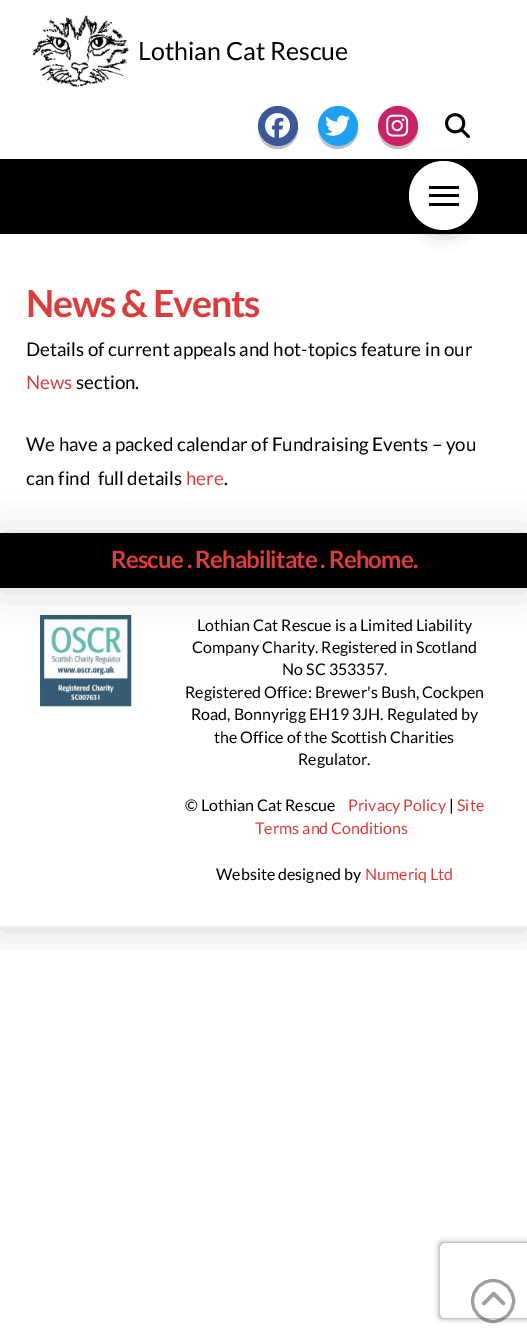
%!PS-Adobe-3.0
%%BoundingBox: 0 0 527 1335
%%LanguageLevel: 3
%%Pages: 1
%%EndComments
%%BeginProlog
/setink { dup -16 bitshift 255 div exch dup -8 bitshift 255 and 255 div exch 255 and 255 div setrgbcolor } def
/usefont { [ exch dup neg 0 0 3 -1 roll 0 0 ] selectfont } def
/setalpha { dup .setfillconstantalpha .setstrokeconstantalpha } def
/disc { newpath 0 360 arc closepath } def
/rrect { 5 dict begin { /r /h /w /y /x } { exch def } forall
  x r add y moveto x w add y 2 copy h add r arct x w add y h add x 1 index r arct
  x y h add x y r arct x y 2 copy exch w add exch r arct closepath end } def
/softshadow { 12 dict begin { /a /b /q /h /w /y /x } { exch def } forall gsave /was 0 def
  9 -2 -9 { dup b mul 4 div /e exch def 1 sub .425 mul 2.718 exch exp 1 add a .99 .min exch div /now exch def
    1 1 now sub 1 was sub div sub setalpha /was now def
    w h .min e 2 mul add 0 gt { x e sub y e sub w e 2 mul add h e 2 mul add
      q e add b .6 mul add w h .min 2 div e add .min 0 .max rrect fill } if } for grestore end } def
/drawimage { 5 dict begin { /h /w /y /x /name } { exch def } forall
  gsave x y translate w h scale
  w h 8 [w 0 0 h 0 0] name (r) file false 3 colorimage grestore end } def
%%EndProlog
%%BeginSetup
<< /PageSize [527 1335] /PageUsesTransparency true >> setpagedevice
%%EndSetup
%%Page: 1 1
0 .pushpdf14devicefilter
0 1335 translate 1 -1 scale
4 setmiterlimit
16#FFFFFF setink
0 0 527 1335 rectfill
(img1.raw) 32 15 98 72 drawimage
/Lato-Regular 25 usefont
16#000000 setink
138 60 moveto (Lothian Cat Rescue) show
0 159 527 75 rectfill
409 165 69 69 34.5 8 0.25 softshadow
16#FFFFFF setink
0 156 moveto 0 159 lineto 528 159 lineto 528 99 lineto 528 156 lineto closepath fill
425 152 37 4 rectfill
16#BFBFBF setink
258 131 moveto 258.5 136 261 140.5 264.5 144 curveto 279.5 157 302 143 297.5 124 curveto 300 148.5 264 155 258 131 curveto closepath fill
16#3B5998 setink
278 126 20 disc fill
(img2.raw) 265 113 25 25 drawimage
16#BFBFBF setink
318 131 moveto 318.5 136 321 140.5 324.5 144 curveto 339.5 157 362 143 357.5 124 curveto 360 148.5 324 155 318 131 curveto closepath fill
16#1DA1F2 setink
338 126 20 disc fill
(img3.raw) 325 115 25 21 drawimage
16#BFBFBF setink
378 131 moveto 378.5 136 381 140.5 384.5 144 curveto 399.5 157 422 143 417.5 124 curveto 420 148.5 384 155 378 131 curveto closepath fill
16#C92267 setink
398 126 20 disc fill
(img4.raw) 386 114 23 23 drawimage
(img5.raw) 445 113 25 26 drawimage
16#FFFFFF setink
443.5 195.5 34.5 disc fill
[
    [429 186 30 3 16#000000]
    [429 194 30 3 16#000000]
    [429 203 30 3 16#000000]
] { aload pop setink rectfill } forall
/Lato-Bold 37.5 usefont
16#DC3C3C setink
26 317 moveto -1.25 0 (News & Events) ashow
/Lato-Regular 18.75 usefont
16#000000 setink
26 356 moveto (Details of current appeals and hot-topics feature in our) show
16#DC3C3C setink
26 389 moveto (News) show
16#000000 setink
[
    [(section.) 76 389]
    [(We have a packed calendar of Fundraising Events – you) 26 451]
    [(can find  full details) 26 485]
] { aload pop moveto show } forall
16#DC3C3C setink
186 485 moveto (here) show
16#000000 setink
224 485 moveto (.) show
gsave
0 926 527 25 rectclip
0 590 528 339 0 20 0.15 softshadow
grestore
(img6.raw) 40 615 92 92 drawimage
0 535 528 55 0 20 0.15 softshadow
0 533 527 55 rectfill
/Lato-Bold 24 usefont
16#DC3C3C setink
111 568 moveto -0.85 0 (Rescue . Rehabilitate . Rehome.) ashow
/Lato-Regular 16 usefont
16#000000 setink
[
    [(Lothian Cat Rescue is a Limited Liability) 197 631]
    [(Company Charity. Registered in Scotland) 192 653]
    [(No SC 353357.) 282 675]
    [(Registered Office: Brewer's Bush, Cockpen) 185 698]
    [(Road, Bonnyrigg EH19 3JH. Regulated by) 191 720]
    [(the Office of the Scottish Charities) 214 743]
    [(Regulator.) 298 765]
    [(© Lothian Cat Rescue) 185 811]
] { aload pop moveto show } forall
16#DC3C3C setink
348 811 moveto (Privacy Policy) show
16#000000 setink
449 811 moveto (|) show
16#DC3C3C setink
457 811 moveto (Site) show
255 834 moveto (Terms and Conditions) show
16#000000 setink
216 880 moveto (Website designed by) show
16#DC3C3C setink
365 880 moveto (Numeriq Ltd) show
gsave
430 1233 moveto 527 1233 lineto 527 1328 lineto 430 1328 lineto closepath 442.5 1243 moveto 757.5 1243 lineto 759 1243 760 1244 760 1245.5 curveto 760 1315.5 lineto 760 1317 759 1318 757.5 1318 curveto 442.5 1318 lineto 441 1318 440 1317 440 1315.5 curveto 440 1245.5 lineto 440 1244 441 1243 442.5 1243 curveto closepath eoclip newpath
16#808080 setink
440 1243 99 75 2.5 3 1 softshadow
grestore
0.38 setalpha
16#000000 setink
3 setlinewidth
493 1301 20.5 disc stroke
1 setalpha
(img7.raw) 482 1291 24 15 drawimage
.poppdf14devicefilter showpage
%%EOF
